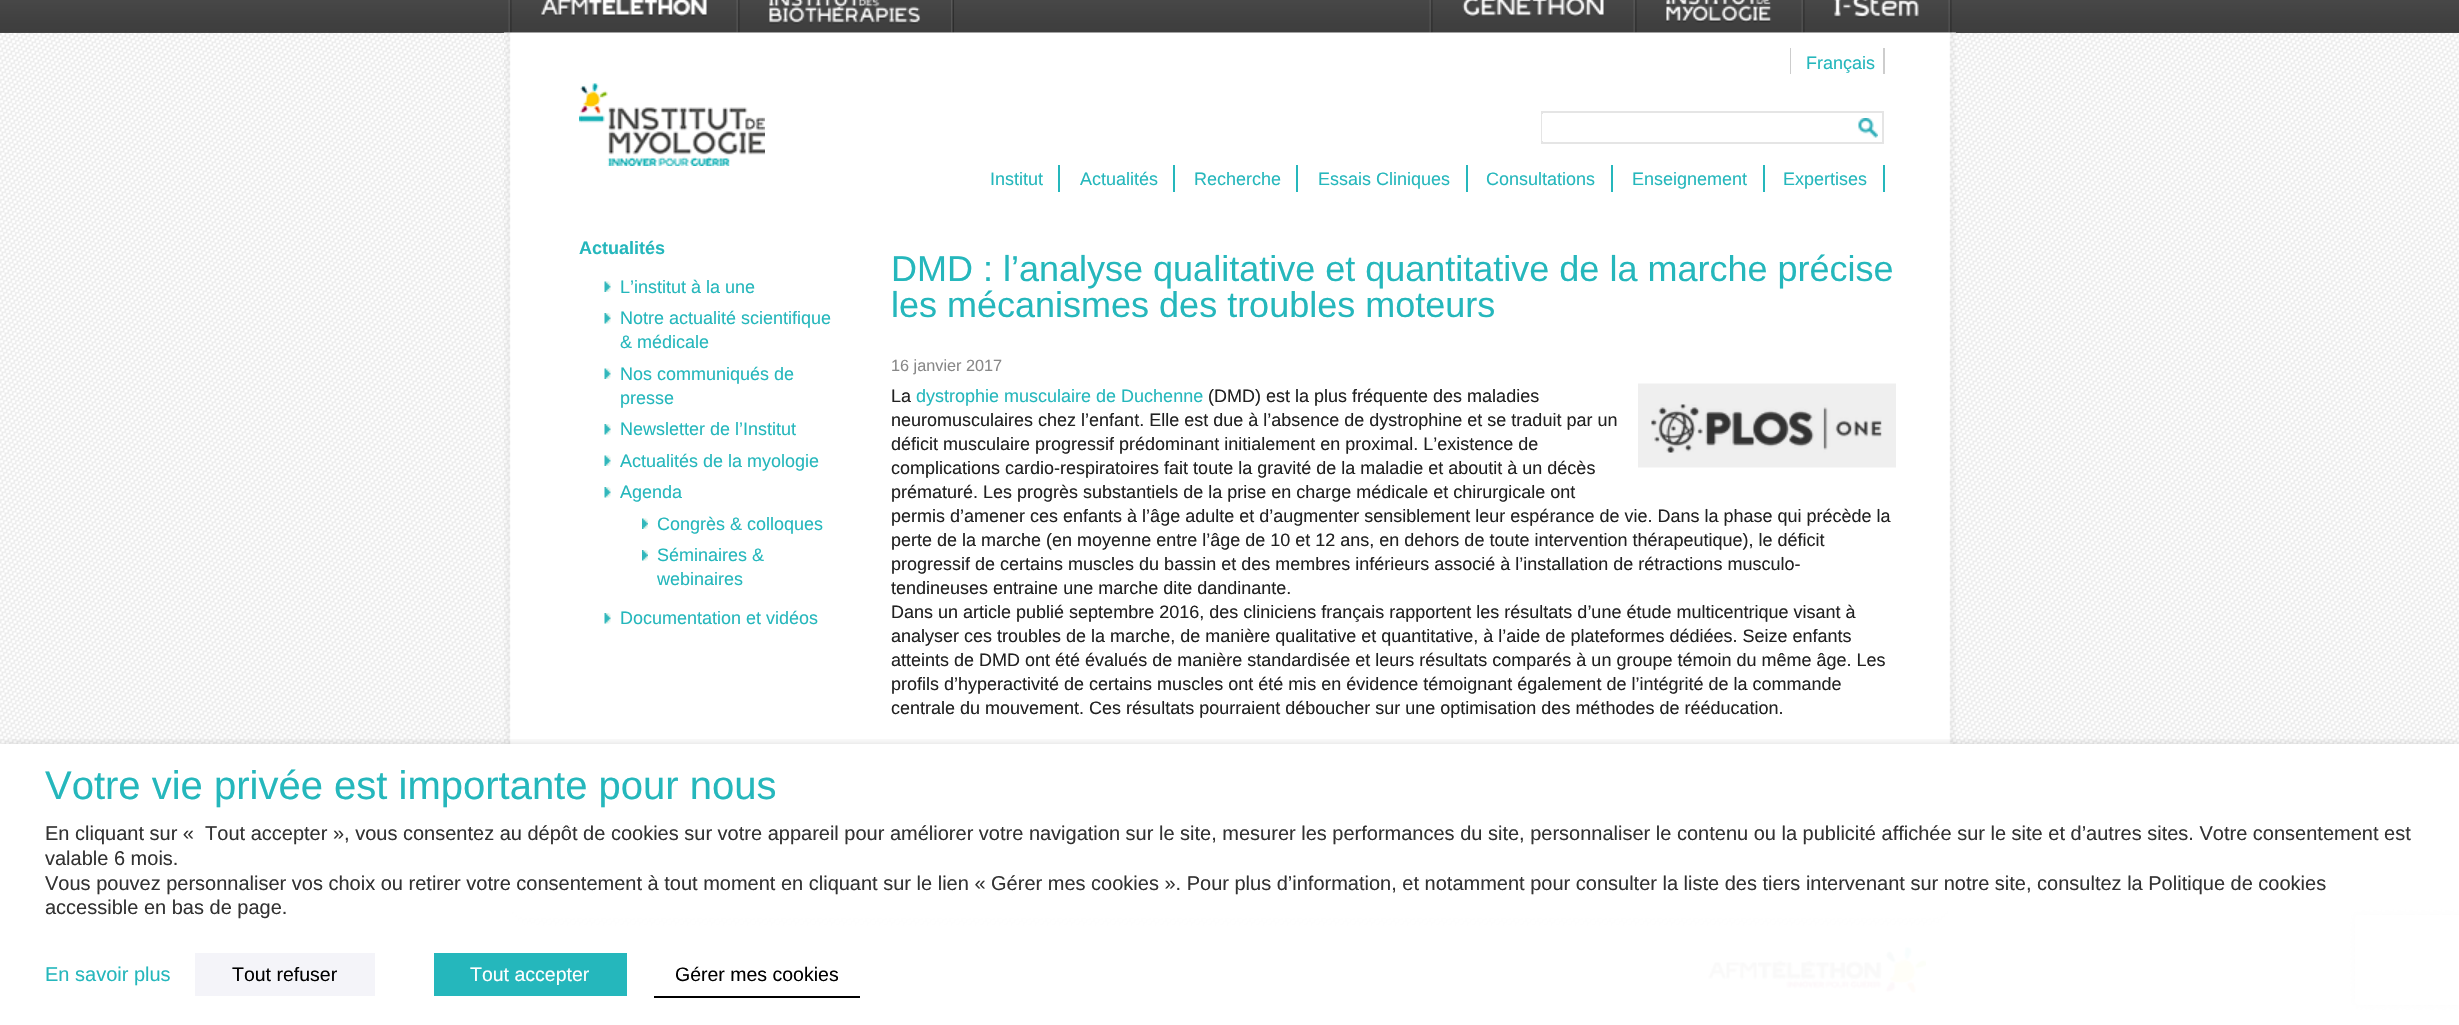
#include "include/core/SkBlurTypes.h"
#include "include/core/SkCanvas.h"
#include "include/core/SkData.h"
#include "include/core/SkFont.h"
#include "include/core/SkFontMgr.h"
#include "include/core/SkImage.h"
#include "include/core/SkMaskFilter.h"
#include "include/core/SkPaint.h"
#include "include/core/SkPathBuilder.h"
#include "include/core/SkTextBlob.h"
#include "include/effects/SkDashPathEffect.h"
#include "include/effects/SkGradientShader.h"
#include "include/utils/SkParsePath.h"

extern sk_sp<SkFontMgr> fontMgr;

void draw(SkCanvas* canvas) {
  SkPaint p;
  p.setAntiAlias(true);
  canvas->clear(SK_ColorWHITE);
  canvas->drawImageRect(SkImages::DeferredFromEncodedData(SkData::MakeFromFileName("images/1.png")), SkRect::MakeLTRB(0, 33, 2459, 1025), SkSamplingOptions());
  p.setColor(SkColorSetRGB(77, 77, 77));
  canvas->drawRect(SkRect::MakeLTRB(0, 32, 2459, 33), p);
  canvas->drawImageRect(SkImages::DeferredFromEncodedData(SkData::MakeFromFileName("images/2.png")), SkRect::MakeLTRB(0, 0, 2459, 33), SkSamplingOptions());
  canvas->drawImageRect(SkImages::DeferredFromEncodedData(SkData::MakeFromFileName("images/3.png")), SkRect::MakeLTRB(508, 0, 512, 33), SkSamplingOptions());
  canvas->drawImageRect(SkImages::DeferredFromEncodedData(SkData::MakeFromFileName("images/3.png")), SkRect::MakeLTRB(1948, 0, 1952, 33), SkSamplingOptions());
  canvas->drawImageRect(SkImages::DeferredFromEncodedData(SkData::MakeFromFileName("images/3.png")), SkRect::MakeLTRB(736, 0, 740, 33), SkSamplingOptions());
  canvas->drawImageRect(SkImages::DeferredFromEncodedData(SkData::MakeFromFileName("images/4.png")), SkRect::MakeLTRB(541, 0, 707, 18), SkSamplingOptions());
  canvas->drawImageRect(SkImages::DeferredFromEncodedData(SkData::MakeFromFileName("images/5.png")), SkRect::MakeLTRB(951, 0, 954, 33), SkSamplingOptions());
  canvas->drawImageRect(SkImages::DeferredFromEncodedData(SkData::MakeFromFileName("images/6.png")), SkRect::MakeLTRB(769, 0, 921, 24), SkSamplingOptions());
  canvas->drawImageRect(SkImages::DeferredFromEncodedData(SkData::MakeFromFileName("images/3.png")), SkRect::MakeLTRB(1429, 0, 1433, 33), SkSamplingOptions());
  canvas->drawImageRect(SkImages::DeferredFromEncodedData(SkData::MakeFromFileName("images/7.png")), SkRect::MakeLTRB(1462, 0, 1604, 18), SkSamplingOptions());
  canvas->drawImageRect(SkImages::DeferredFromEncodedData(SkData::MakeFromFileName("images/3.png")), SkRect::MakeLTRB(1633, 0, 1637, 33), SkSamplingOptions());
  canvas->drawImageRect(SkImages::DeferredFromEncodedData(SkData::MakeFromFileName("images/8.png")), SkRect::MakeLTRB(1666, 0, 1772, 23), SkSamplingOptions());
  canvas->drawImageRect(SkImages::DeferredFromEncodedData(SkData::MakeFromFileName("images/3.png")), SkRect::MakeLTRB(1801, 0, 1805, 33), SkSamplingOptions());
  canvas->drawImageRect(SkImages::DeferredFromEncodedData(SkData::MakeFromFileName("images/9.png")), SkRect::MakeLTRB(1834, 0, 1919, 18), SkSamplingOptions());
  p.setColor(SK_ColorWHITE);
  canvas->drawRect(SkRect::MakeLTRB(504, 932, 1956, 933), p);
  canvas->drawImageRect(SkImages::DeferredFromEncodedData(SkData::MakeFromFileName("images/10.png")), SkRect::MakeLTRB(504, 888, 1956, 933), SkSamplingOptions());
  canvas->drawImageRect(SkImages::DeferredFromEncodedData(SkData::MakeFromFileName("images/11.png")), SkRect::MakeLTRB(504, 32, 1956, 220), SkSamplingOptions());
  canvas->drawImageRect(SkImages::DeferredFromEncodedData(SkData::MakeFromFileName("images/12.png")), SkRect::MakeLTRB(579, 83, 765, 166), SkSamplingOptions());
  p.setColor(SkColorSetRGB(205, 205, 205));
  canvas->drawRect(SkRect::MakeLTRB(1883, 48, 1885, 74), p);
  canvas->drawRect(SkRect::MakeLTRB(1790, 48, 1791, 74), p);
  p.setStyle(SkPaint::kStroke_Style);
  p.setStrokeWidth(2);
  p.setColor(SkColorSetRGB(229, 229, 229));
  canvas->drawRect(SkRect::MakeLTRB(1542, 112, 1883, 143), p);
  p.setStyle(SkPaint::kFill_Style);
  p.setColor(SK_ColorWHITE);
  canvas->drawRect(SkRect::MakeLTRB(1542, 114, 1543, 141), p);
  canvas->drawImageRect(SkImages::DeferredFromEncodedData(SkData::MakeFromFileName("images/13.png")), SkRect::MakeLTRB(1858, 118, 1878, 138), SkSamplingOptions());
  p.setColor(SkColorSetRGB(37, 183, 188));
  canvas->drawRect(SkRect::MakeLTRB(1058, 165, 1060, 192), p);
  canvas->drawRect(SkRect::MakeLTRB(1173, 165, 1175, 192), p);
  canvas->drawRect(SkRect::MakeLTRB(1296, 165, 1298, 192), p);
  canvas->drawRect(SkRect::MakeLTRB(1466, 165, 1468, 192), p);
  canvas->drawRect(SkRect::MakeLTRB(1611, 165, 1613, 192), p);
  canvas->drawRect(SkRect::MakeLTRB(1763, 165, 1765, 192), p);
  canvas->drawRect(SkRect::MakeLTRB(1883, 165, 1885, 192), p);
  p.setColor(SK_ColorWHITE);
  canvas->drawRect(SkRect::MakeLTRB(504, 887, 1956, 888), p);
  canvas->drawImageRect(SkImages::DeferredFromEncodedData(SkData::MakeFromFileName("images/14.png")), SkRect::MakeLTRB(504, 220, 1956, 888), SkSamplingOptions());
  canvas->drawImageRect(SkImages::DeferredFromEncodedData(SkData::MakeFromFileName("images/15.png")), SkRect::MakeLTRB(604, 281, 611, 292), SkSamplingOptions());
  canvas->drawImageRect(SkImages::DeferredFromEncodedData(SkData::MakeFromFileName("images/16.png")), SkRect::MakeLTRB(604, 313, 611, 324), SkSamplingOptions());
  canvas->drawImageRect(SkImages::DeferredFromEncodedData(SkData::MakeFromFileName("images/15.png")), SkRect::MakeLTRB(604, 368, 611, 379), SkSamplingOptions());
  canvas->drawImageRect(SkImages::DeferredFromEncodedData(SkData::MakeFromFileName("images/16.png")), SkRect::MakeLTRB(604, 424, 611, 435), SkSamplingOptions());
  canvas->drawImageRect(SkImages::DeferredFromEncodedData(SkData::MakeFromFileName("images/15.png")), SkRect::MakeLTRB(604, 455, 611, 466), SkSamplingOptions());
  canvas->drawImageRect(SkImages::DeferredFromEncodedData(SkData::MakeFromFileName("images/16.png")), SkRect::MakeLTRB(604, 487, 611, 498), SkSamplingOptions());
  canvas->drawImageRect(SkImages::DeferredFromEncodedData(SkData::MakeFromFileName("images/17.png")), SkRect::MakeLTRB(642, 518, 648, 529), SkSamplingOptions());
  canvas->drawImageRect(SkImages::DeferredFromEncodedData(SkData::MakeFromFileName("images/18.png")), SkRect::MakeLTRB(642, 550, 648, 561), SkSamplingOptions());
  canvas->drawImageRect(SkImages::DeferredFromEncodedData(SkData::MakeFromFileName("images/16.png")), SkRect::MakeLTRB(604, 613, 611, 624), SkSamplingOptions());
  canvas->drawImageRect(SkImages::DeferredFromEncodedData(SkData::MakeFromFileName("images/19.png")), SkRect::MakeLTRB(1638, 383, 1896, 468), SkSamplingOptions());
  canvas->drawImageRect(SkImages::DeferredFromEncodedData(SkData::MakeFromFileName("images/20.png")), SkRect::MakeLTRB(1708, 947, 1926, 993), SkSamplingOptions());
  canvas->save();
  canvas->clipRect(SkRect::MakeLTRB(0, 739, 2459, 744));
  p.setColor(SkColorSetARGB(128, 0, 0, 0));
  p.setMaskFilter(SkMaskFilter::MakeBlur(kNormal_SkBlurStyle, 7.5f));
  canvas->drawRect(SkRect::MakeLTRB(0, 752, 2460, 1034), p);
  p.setMaskFilter(nullptr);
  canvas->restore();
  canvas->save();
  canvas->clipPath(SkPathBuilder(SkPathFillType::kEvenOdd).moveTo(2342, 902).lineTo(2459, 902).lineTo(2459, 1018).lineTo(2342, 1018).close().moveTo(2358, 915).lineTo(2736, 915).cubicTo(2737.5f, 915, 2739, 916.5f, 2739, 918).lineTo(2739, 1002).cubicTo(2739, 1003.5f, 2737.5f, 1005, 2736, 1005).lineTo(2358, 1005).cubicTo(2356.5f, 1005, 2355, 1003.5f, 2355, 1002).lineTo(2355, 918).cubicTo(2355, 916.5f, 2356.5f, 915, 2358, 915).close().detach(), true);
  p.setColor(SkColorSetRGB(128, 128, 128));
  p.setMaskFilter(SkMaskFilter::MakeBlur(kNormal_SkBlurStyle, 4));
  canvas->drawRoundRect(SkRect::MakeLTRB(2355, 915, 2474, 1005), 3, 3, p);
  p.setMaskFilter(nullptr);
  canvas->restore();
  p.setColor(SkColorSetARGB(247, 255, 255, 255));
  canvas->drawRect(SkRect::MakeLTRB(0, 744, 2459, 1025), p);
  p.setColor(SkColorSetRGB(244, 244, 249));
  canvas->drawRect(SkRect::MakeLTRB(195, 953, 375, 996), p);
  p.setColor(SkColorSetRGB(37, 183, 188));
  canvas->drawRect(SkRect::MakeLTRB(434, 953, 627, 996), p);
  p.setColor(SK_ColorBLACK);
  canvas->drawRect(SkRect::MakeLTRB(654, 996, 860, 998), p);
  SkFont font1(fontMgr->matchFamilyStyle("Liberation Sans", SkFontStyle::Normal()), 18);
  font1.setSubpixel(true);
  p.setColor(SkColorSetRGB(37, 183, 188));
  canvas->drawString("Français", 1806, 69, font1, p);
  canvas->drawString("Institut", 990, 185, font1, p);
  canvas->drawString("Actualités", 1080, 185, font1, p);
  canvas->drawString("Recherche", 1194, 185, font1, p);
  canvas->drawString("Essais Cliniques", 1318, 185, font1, p);
  canvas->drawString("Consultations", 1486, 185, font1, p);
  canvas->drawString("Enseignement", 1632, 185, font1, p);
  canvas->drawString("Expertises", 1783, 185, font1, p);
  SkFont font2(fontMgr->matchFamilyStyle("Liberation Sans", SkFontStyle::Bold()), 18);
  font2.setSubpixel(true);
  canvas->drawString("Actualités", 579, 254, font2, p);
  canvas->drawString("L’institut à la une", 620, 293, font1, p);
  canvas->drawString("Notre actualité scientifique", 620, 324, font1, p);
  canvas->drawString("& médicale", 620, 348, font1, p);
  canvas->drawString("Nos communiqués de", 620, 380, font1, p);
  canvas->drawString("presse", 620, 404, font1, p);
  canvas->drawString("Newsletter de l’Institut", 620, 435, font1, p);
  canvas->drawString("Actualités de la myologie", 620, 467, font1, p);
  canvas->drawString("Agenda", 620, 498, font1, p);
  canvas->drawString("Congrès & colloques", 657, 530, font1, p);
  canvas->drawString("Séminaires &", 657, 561, font1, p);
  canvas->drawString("webinaires", 657, 585, font1, p);
  canvas->drawString("Documentation et vidéos", 620, 624, font1, p);
  SkFont font3(fontMgr->matchFamilyStyle("Liberation Sans", SkFontStyle::Normal()), 36);
  font3.setSubpixel(true);
  canvas->drawString("DMD : l’analyse qualitative et quantitative de la marche précise", 891, 281, font3, p);
  canvas->drawString("les mécanismes des troubles moteurs", 891, 317, font3, p);
  SkFont font4(fontMgr->matchFamilyStyle("Liberation Sans", SkFontStyle::Normal()), 16.25f);
  font4.setSubpixel(true);
  p.setColor(SkColorSetRGB(136, 136, 136));
  canvas->drawString("16 janvier 2017", 891, 371, font4, p);
  p.setColor(SkColorSetRGB(34, 34, 34));
  canvas->drawString("La", 891, 402, font1, p);
  p.setColor(SkColorSetRGB(37, 183, 188));
  canvas->drawString("dystrophie musculaire de Duchenne", 916, 402, font1, p);
  p.setColor(SkColorSetRGB(34, 34, 34));
  canvas->drawString("(DMD) est la plus fréquente des maladies", 1208, 402, font1, p);
  canvas->drawString("neuromusculaires chez l’enfant. Elle est due à l’absence de dystrophine et se traduit par un", 891, 426, font1, p);
  canvas->drawString("déficit musculaire progressif prédominant initialement en proximal. L’existence de", 891, 450, font1, p);
  canvas->drawString("complications cardio-respiratoires fait toute la gravité de la maladie et aboutit à un décès", 891, 474, font1, p);
  canvas->drawString("prématuré. Les progrès substantiels de la prise en charge médicale et chirurgicale ont", 891, 498, font1, p);
  canvas->drawString("permis d’amener ces enfants à l’âge adulte et d’augmenter sensiblement leur espérance de vie. Dans la phase qui précède la", 891, 522, font1, p);
  canvas->drawString("perte de la marche (en moyenne entre l’âge de 10 et 12 ans, en dehors de toute intervention thérapeutique), le déficit", 891, 546, font1, p);
  canvas->drawString("progressif de certains muscles du bassin et des membres inférieurs associé à l’installation de rétractions musculo-", 891, 570, font1, p);
  canvas->drawString("tendineuses entraine une marche dite dandinante.", 891, 594, font1, p);
  canvas->drawString("Dans un article publié septembre 2016, des cliniciens français rapportent les résultats d’une étude multicentrique visant à", 891, 618, font1, p);
  canvas->drawString("analyser ces troubles de la marche, de manière qualitative et quantitative, à l’aide de plateformes dédiées. Seize enfants", 891, 642, font1, p);
  canvas->drawString("atteints de DMD ont été évalués de manière standardisée et leurs résultats comparés à un groupe témoin du même âge. Les", 891, 666, font1, p);
  canvas->drawString("profils d’hyperactivité de certains muscles ont été mis en évidence témoignant également de l’intégrité de la commande", 891, 690, font1, p);
  canvas->drawString("centrale du mouvement. Ces résultats pourraient déboucher sur une optimisation des méthodes de rééducation.", 891, 714, font1, p);
  SkFont font5(fontMgr->matchFamilyStyle("Liberation Sans", SkFontStyle::Normal()), 40);
  font5.setSubpixel(true);
  p.setColor(SkColorSetRGB(37, 183, 188));
  canvas->drawString("Votre vie privée est importante pour nous", 45, 799, font5, p);
  SkFont font6(fontMgr->matchFamilyStyle("Liberation Sans", SkFontStyle::Normal()), 20);
  font6.setSubpixel(true);
  p.setColor(SkColorSetRGB(51, 51, 51));
  canvas->drawString("En cliquant sur «  Tout accepter », vous consentez au dépôt de cookies sur votre appareil pour améliorer votre navigation sur le site, mesurer les performances du site, personnaliser le contenu ou la publicité affichée sur le site et d’autres sites. Votre consentement est", 45, 840, font6, p);
  canvas->drawString("valable 6 mois.", 45, 865, font6, p);
  canvas->drawString("Vous pouvez personnaliser vos choix ou retirer votre consentement à tout moment en cliquant sur le lien « Gérer mes cookies ». Pour plus d’information, et notamment pour consulter la liste des tiers intervenant sur notre site, consultez la Politique de cookies", 45, 890, font6, p);
  canvas->drawString("accessible en bas de page.", 45, 914, font6, p);
  p.setColor(SkColorSetRGB(37, 183, 188));
  canvas->drawString("En savoir plus", 45, 981, font6, p);
  SkFont font7(fontMgr->matchFamilyStyle("Liberation Sans", SkFontStyle::Normal()), 19.5f);
  font7.setSubpixel(true);
  p.setColor(SK_ColorBLACK);
  canvas->drawString("Tout refuser", 232, 981, font7, p);
  p.setColor(SK_ColorWHITE);
  canvas->drawString("Tout accepter", 470, 981, font7, p);
  p.setColor(SK_ColorBLACK);
  canvas->drawString("Gérer mes cookies", 675, 981, font7, p);
}
